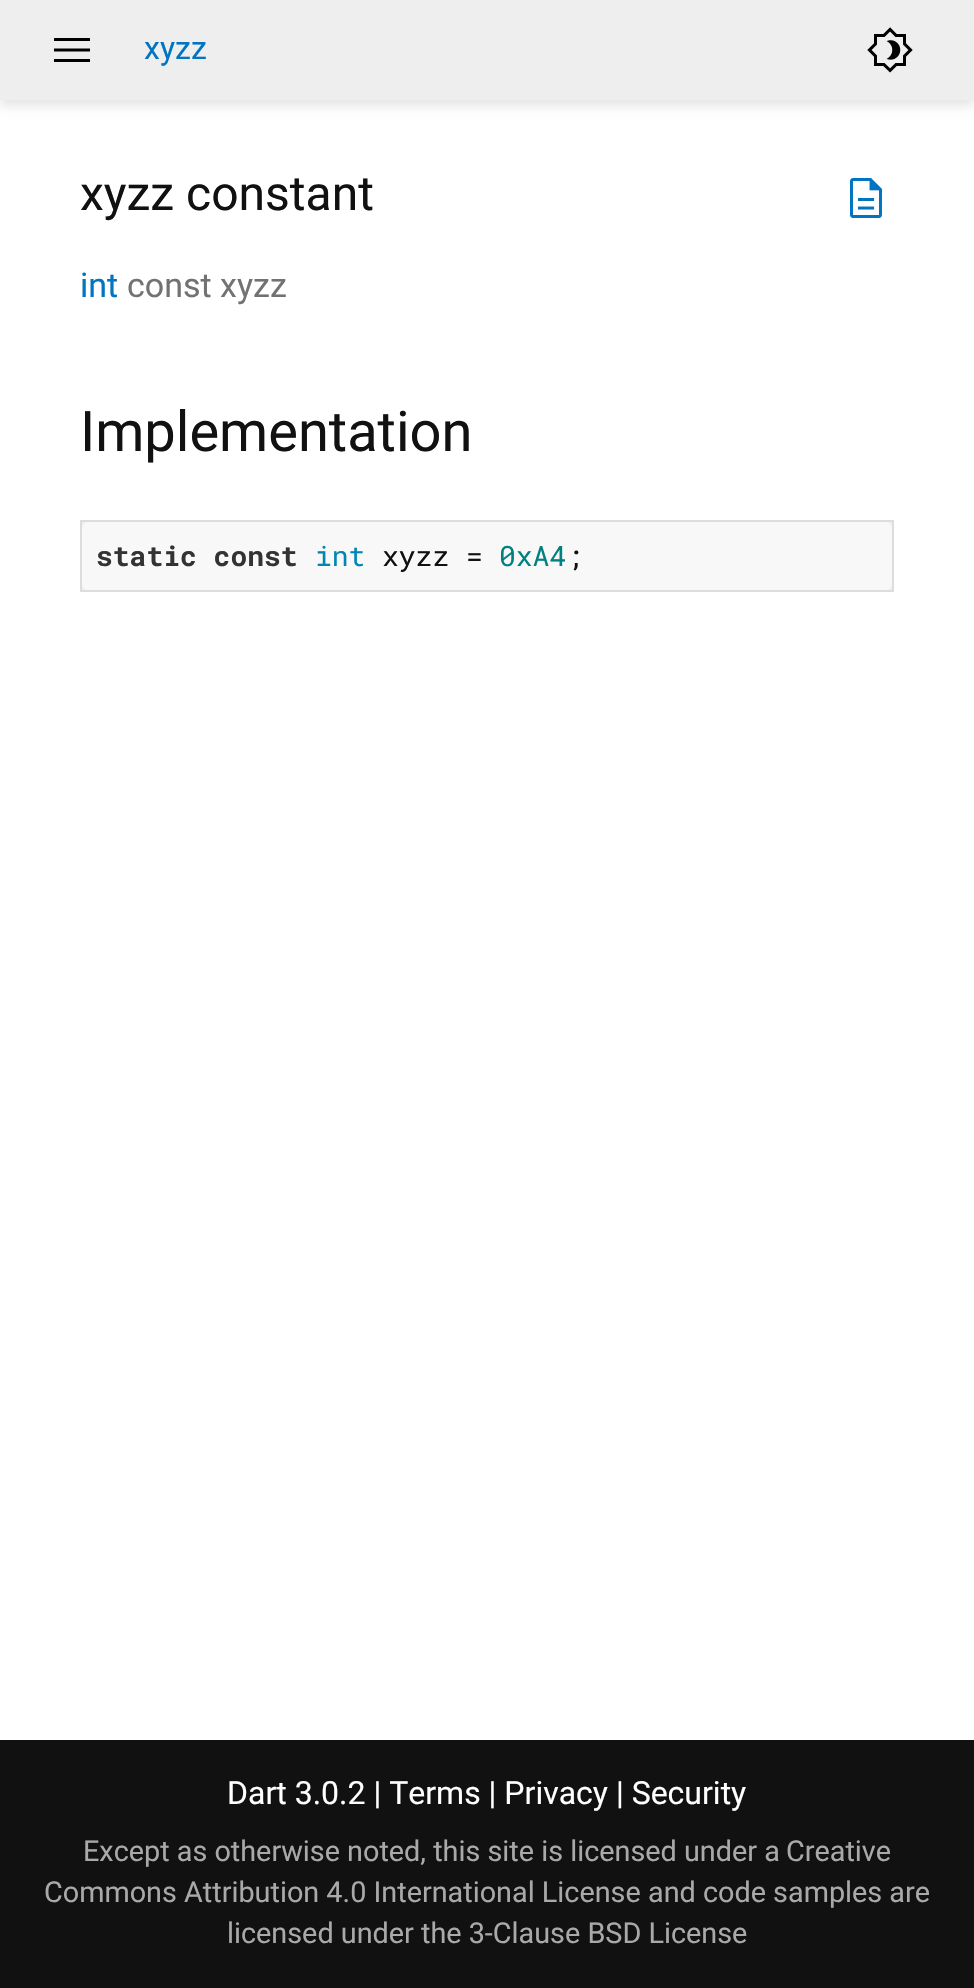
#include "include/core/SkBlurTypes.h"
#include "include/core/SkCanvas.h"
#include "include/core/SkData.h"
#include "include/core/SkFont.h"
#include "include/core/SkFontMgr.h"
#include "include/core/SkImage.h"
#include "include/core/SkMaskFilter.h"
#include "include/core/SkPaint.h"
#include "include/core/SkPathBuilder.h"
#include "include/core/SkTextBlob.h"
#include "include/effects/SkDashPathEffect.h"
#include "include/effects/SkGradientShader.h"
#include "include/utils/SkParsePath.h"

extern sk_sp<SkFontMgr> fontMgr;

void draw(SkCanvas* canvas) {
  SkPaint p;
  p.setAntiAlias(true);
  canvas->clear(SK_ColorWHITE);
  p.setColor(SkColorSetARGB(26, 0, 0, 0));
  p.setMaskFilter(SkMaskFilter::MakeBlur(kNormal_SkBlurStyle, 5));
  canvas->drawRect(SkRect::MakeLTRB(0, 6, 974, 106), p);
  p.setMaskFilter(nullptr);
  p.setColor(SkColorSetRGB(238, 238, 238));
  canvas->drawRect(SkRect::MakeLTRB(0, 0, 974, 100), p);
  p.setColor(SK_ColorBLACK);
  canvas->drawPath(SkPathBuilder().moveTo(54, 62).lineTo(54, 59).lineTo(90, 59).lineTo(90, 62).close().moveTo(54, 51.5f).lineTo(54, 48.5f).lineTo(90, 48.5f).lineTo(90, 51.5f).close().moveTo(54, 41).lineTo(54, 38).lineTo(90, 38).lineTo(90, 41).close().detach(), p);
  canvas->drawImageRect(SkImages::DeferredFromEncodedData(SkData::MakeFromFileName("images/1.png")), SkRect::MakeLTRB(867, 27, 913, 73), SkSamplingOptions());
  canvas->drawImageRect(SkImages::DeferredFromEncodedData(SkData::MakeFromFileName("images/2.png")), SkRect::MakeLTRB(850, 178, 882, 218), SkSamplingOptions());
  p.setColor(SkColorSetRGB(238, 238, 238));
  canvas->drawRect(SkRect::MakeLTRB(81, 521, 893, 591), p);
  p.setStyle(SkPaint::kStroke_Style);
  p.setStrokeWidth(2);
  p.setColor(SkColorSetRGB(221, 221, 221));
  canvas->drawRect(SkRect::MakeLTRB(81, 521, 893, 591), p);
  p.setStyle(SkPaint::kFill_Style);
  p.setColor(SkColorSetRGB(248, 248, 248));
  canvas->drawRoundRect(SkRect::MakeLTRB(82, 522, 892, 590), 6, 6, p);
  p.setColor(SkColorSetRGB(17, 17, 17));
  canvas->drawRect(SkRect::MakeLTRB(0, 1740, 974, 1988), p);
  SkFont font1(fontMgr->matchFamilyStyle("Roboto", SkFontStyle::Normal()), 32);
  font1.setSubpixel(true);
  p.setColor(SkColorSetRGB(1, 117, 194));
  canvas->drawString("xyzz", 144, 59, font1, p);
  SkFont font2(fontMgr->matchFamilyStyle("Roboto", SkFontStyle::Normal()), 48);
  font2.setSubpixel(true);
  p.setColor(SkColorSetRGB(17, 17, 17));
  canvas->drawString("xyzz constant", 80, 210, font2, p);
  SkFont font3(fontMgr->matchFamilyStyle("Roboto", SkFontStyle::Normal()), 34);
  font3.setSubpixel(true);
  p.setColor(SkColorSetRGB(1, 117, 194));
  canvas->drawString("int", 80, 297, font3, p);
  p.setColor(SkColorSetRGB(114, 114, 114));
  canvas->drawString("const xyzz", 127, 297, font3, p);
  SkFont font4(fontMgr->matchFamilyStyle("Roboto", SkFontStyle::Normal()), 56);
  font4.setSubpixel(true);
  p.setColor(SkColorSetRGB(17, 17, 17));
  canvas->drawString("Implementation", 80, 451, font4, p);
  SkFont font5(fontMgr->matchFamilyStyle("Roboto Mono", SkFontStyle::Bold()), 28);
  font5.setSubpixel(true);
  p.setColor(SkColorSetRGB(51, 51, 51));
  canvas->drawString("static const", 96, 566, font5, p);
  SkFont font6(fontMgr->matchFamilyStyle("Roboto Mono", SkFontStyle::Normal()), 28);
  font6.setSubpixel(true);
  p.setColor(SkColorSetRGB(0, 134, 179));
  canvas->drawString("int", 315, 566, font6, p);
  p.setColor(SkColorSetRGB(17, 17, 17));
  canvas->drawString("xyzz =", 382, 566, font6, p);
  p.setColor(SkColorSetRGB(0, 128, 128));
  canvas->drawString("0xA4", 499, 566, font6, p);
  p.setColor(SkColorSetRGB(17, 17, 17));
  canvas->drawString(";", 567, 566, font6, p);
  p.setColor(SK_ColorWHITE);
  canvas->drawString("Dart 3.0.2 | Terms | Privacy | Security", 227, 1804, font1, p);
  SkFont font7(fontMgr->matchFamilyStyle("Roboto", SkFontStyle::Normal()), 28.8f);
  font7.setSubpixel(true);
  p.setColor(SkColorSetRGB(169, 169, 169));
  canvas->drawString("Except as otherwise noted, this site is licensed under a", 83, 1861, font7, p);
  canvas->drawString("Creative", 786, 1861, font7, p);
  canvas->drawString("Commons Attribution 4.0 International License", 44, 1902, font7, p);
  canvas->drawString("and code samples are", 648, 1902, font7, p);
  canvas->drawString("licensed under the 3-Clause BSD License", 227, 1943, font7, p);
}
